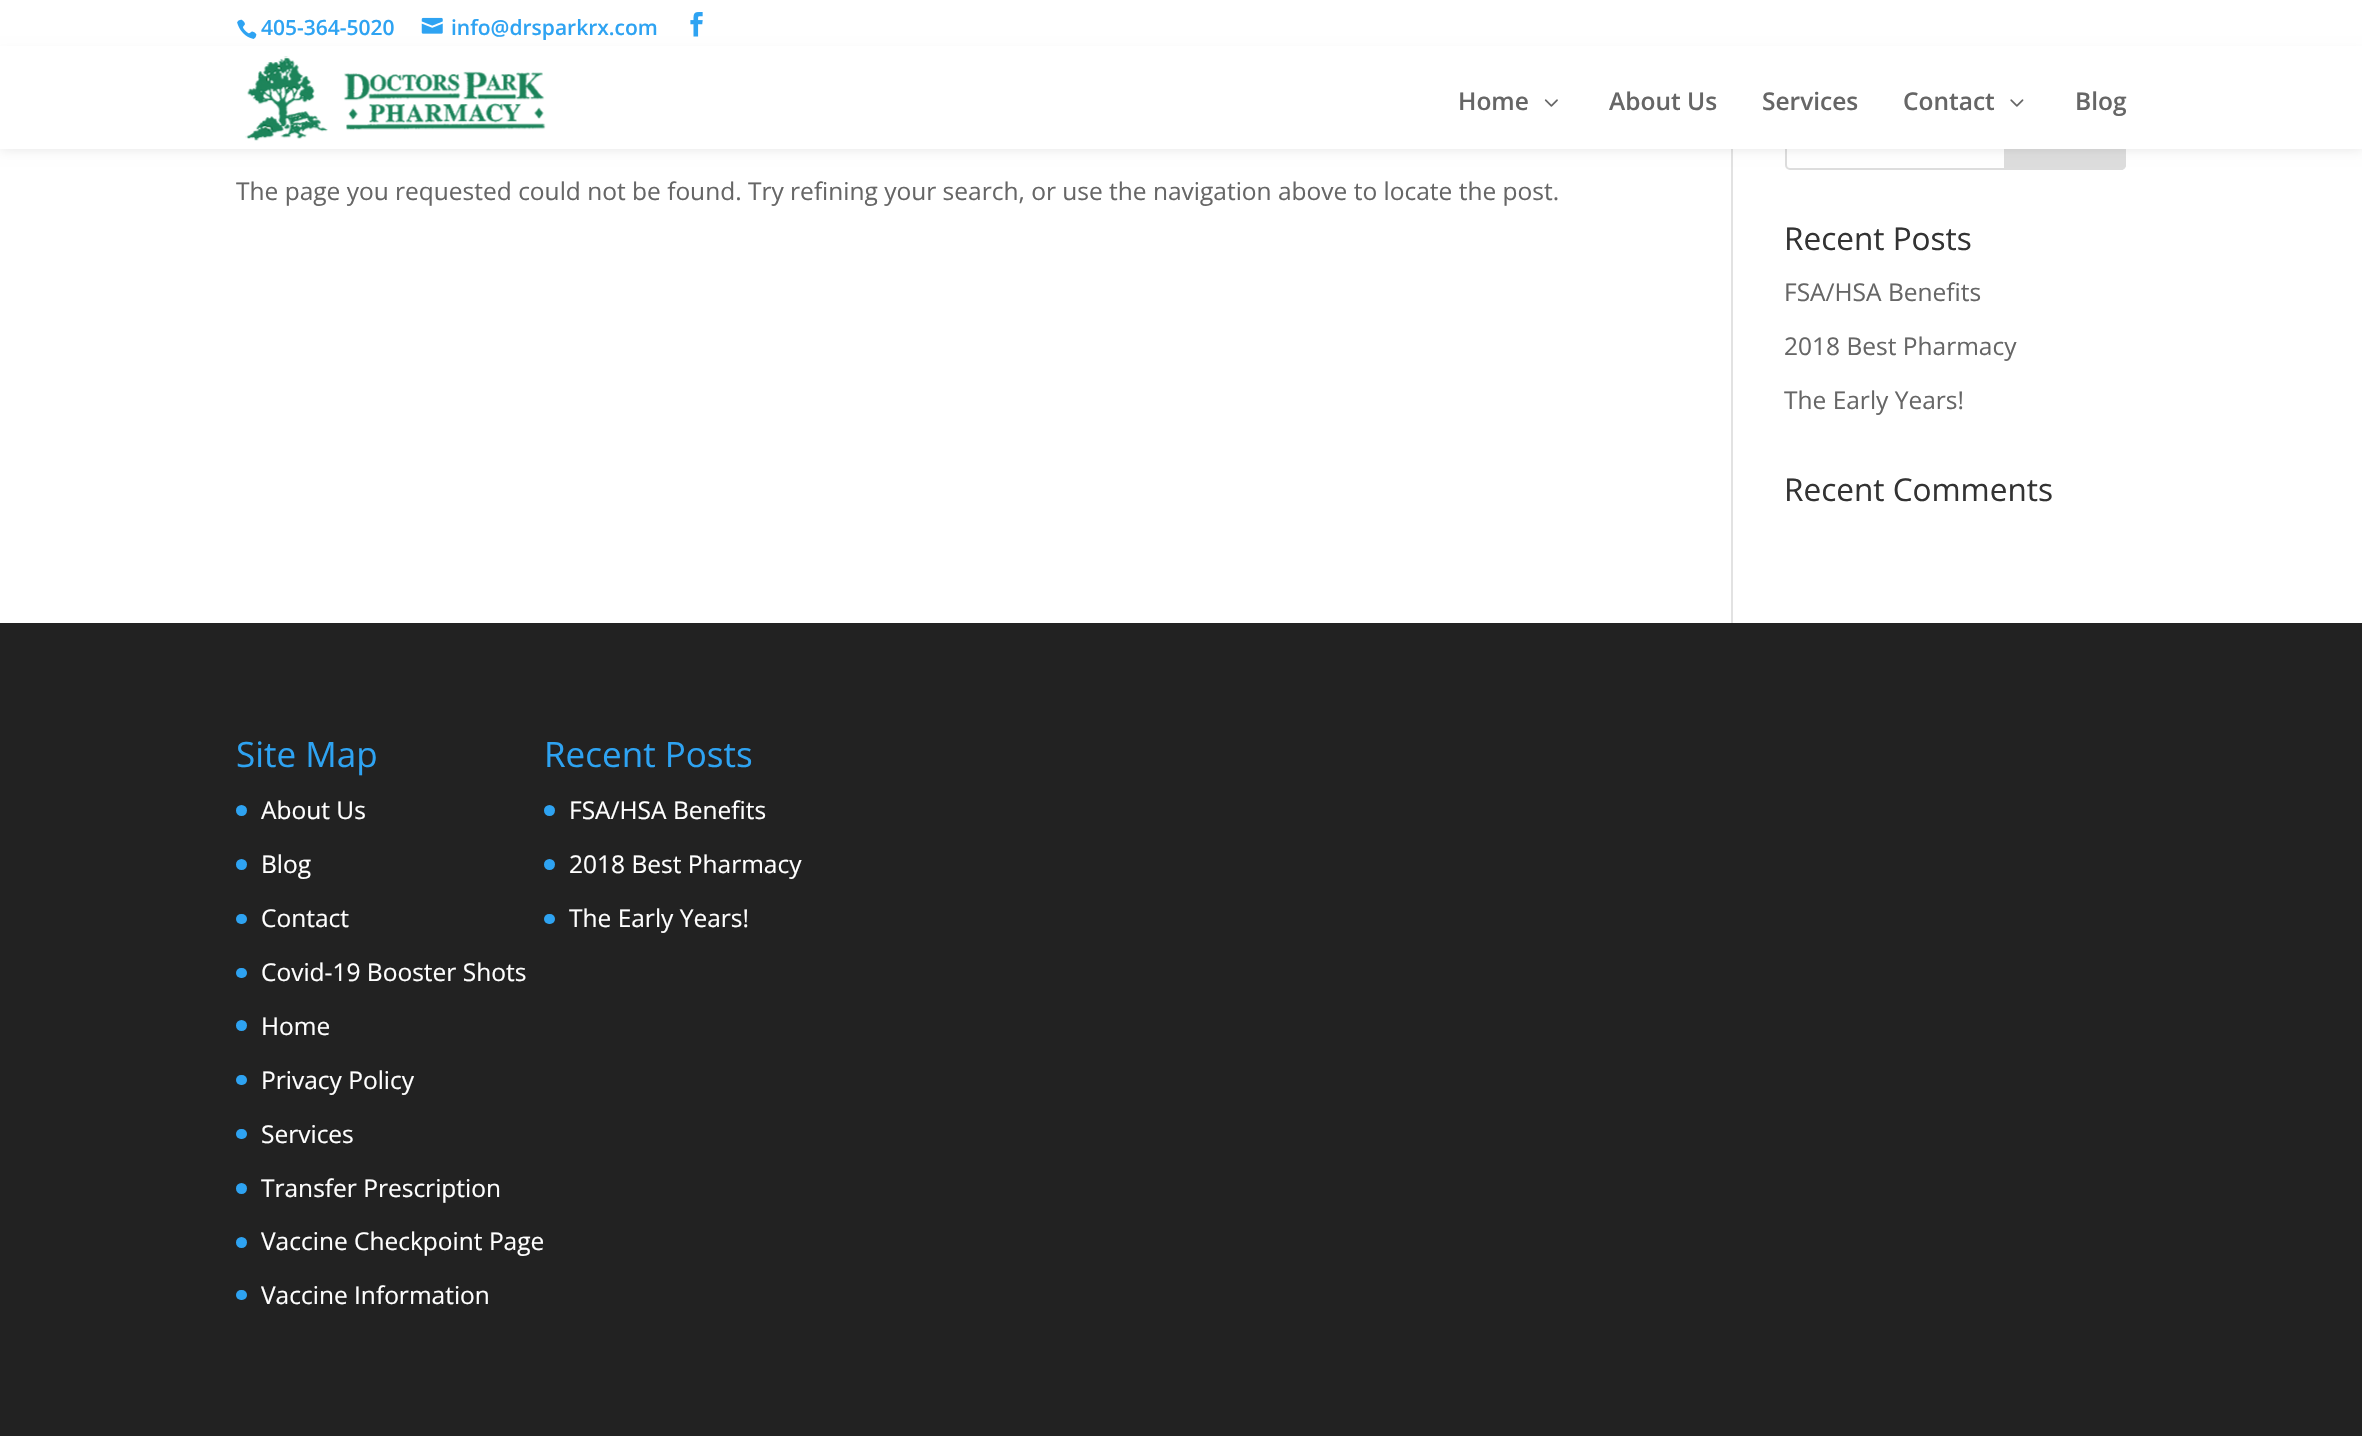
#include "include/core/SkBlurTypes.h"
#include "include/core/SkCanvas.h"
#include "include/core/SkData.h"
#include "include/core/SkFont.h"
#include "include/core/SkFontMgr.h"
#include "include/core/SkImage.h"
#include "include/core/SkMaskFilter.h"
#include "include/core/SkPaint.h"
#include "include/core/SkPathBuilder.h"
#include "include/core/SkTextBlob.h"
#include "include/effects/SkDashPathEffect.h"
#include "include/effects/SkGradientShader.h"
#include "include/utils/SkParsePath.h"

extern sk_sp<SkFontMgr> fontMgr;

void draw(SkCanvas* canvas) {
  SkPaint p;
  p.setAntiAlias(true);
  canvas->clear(SK_ColorWHITE);
  p.setColor(SkColorSetRGB(226, 226, 226));
  canvas->drawRect(SkRect::MakeLTRB(1731, 149, 1733, 623), p);
  p.setStyle(SkPaint::kStroke_Style);
  p.setStrokeWidth(2);
  p.setColor(SkColorSetRGB(221, 221, 221));
  canvas->drawRoundRect(SkRect::MakeLTRB(1786, 101, 2125, 169), 4, 4, p);
  p.setStyle(SkPaint::kFill_Style);
  canvas->drawPath(SkPathBuilder().moveTo(2005, 101).lineTo(2121, 101).cubicTo(2123, 101, 2125, 103, 2125, 105).lineTo(2125, 165).cubicTo(2125, 167, 2123, 169, 2121, 169).lineTo(2005, 169).close().detach(), p);
  p.setStyle(SkPaint::kStroke_Style);
  canvas->drawPath(SkPathBuilder().moveTo(2005, 101).lineTo(2121, 101).cubicTo(2123, 101, 2125, 103, 2125, 105).lineTo(2125, 165).cubicTo(2125, 167, 2123, 169, 2121, 169).lineTo(2005, 169).close().detach(), p);
  p.setStyle(SkPaint::kFill_Style);
  p.setColor(SkColorSetARGB(26, 0, 0, 0));
  p.setMaskFilter(SkMaskFilter::MakeBlur(kNormal_SkBlurStyle, 6));
  canvas->drawRect(SkRect::MakeLTRB(0, 54, 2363, 149), p);
  p.setMaskFilter(nullptr);
  canvas->drawImageRect(SkImages::DeferredFromEncodedData(SkData::MakeFromFileName("images/1.png")), SkRect::MakeLTRB(237, 19, 257, 39), SkSamplingOptions());
  canvas->drawImageRect(SkImages::DeferredFromEncodedData(SkData::MakeFromFileName("images/2.png")), SkRect::MakeLTRB(421, 17, 443, 34), SkSamplingOptions());
  canvas->drawImageRect(SkImages::DeferredFromEncodedData(SkData::MakeFromFileName("images/3.png")), SkRect::MakeLTRB(690, 12, 703, 37), SkSamplingOptions());
  p.setColor(SK_ColorWHITE);
  canvas->drawRect(SkRect::MakeLTRB(0, 46, 2362, 149), p);
  canvas->drawImageRect(SkImages::DeferredFromEncodedData(SkData::MakeFromFileName("images/4.png")), SkRect::MakeLTRB(245, 56, 546, 141), SkSamplingOptions());
  canvas->drawImageRect(SkImages::DeferredFromEncodedData(SkData::MakeFromFileName("images/5.png")), SkRect::MakeLTRB(1544, 99, 1558, 107), SkSamplingOptions());
  canvas->drawImageRect(SkImages::DeferredFromEncodedData(SkData::MakeFromFileName("images/6.png")), SkRect::MakeLTRB(2010, 99, 2024, 107), SkSamplingOptions());
  p.setColor(SkColorSetRGB(34, 34, 34));
  canvas->drawRect(SkRect::MakeLTRB(0, 623, 2362, 1436), p);
  p.setColor(SkColorSetRGB(46, 163, 242));
  canvas->drawCircle(241.5f, 810.5f, 5.5f, p);
  canvas->drawCircle(241.5f, 864.5f, 5.5f, p);
  canvas->drawRoundRect(SkRect::MakeLTRB(236, 914, 247, 924), 5, 5, p);
  canvas->drawRoundRect(SkRect::MakeLTRB(236, 968, 247, 978), 5, 5, p);
  canvas->drawCircle(241.5f, 1025.5f, 5.5f, p);
  canvas->drawRoundRect(SkRect::MakeLTRB(236, 1075, 247, 1085), 5, 5, p);
  canvas->drawRoundRect(SkRect::MakeLTRB(236, 1129, 247, 1139), 5, 5, p);
  canvas->drawCircle(241.5f, 1188.5f, 5.5f, p);
  canvas->drawCircle(241.5f, 1242.5f, 5.5f, p);
  canvas->drawRoundRect(SkRect::MakeLTRB(236, 1290, 247, 1300), 5, 5, p);
  canvas->drawCircle(549.5f, 810.5f, 5.5f, p);
  canvas->drawCircle(549.5f, 864.5f, 5.5f, p);
  canvas->drawRoundRect(SkRect::MakeLTRB(544, 914, 555, 924), 5, 5, p);
  SkFont font1(fontMgr->matchFamilyStyle("Open Sans", SkFontStyle(600, SkFontStyle::kNormal_Width, SkFontStyle::kUpright_Slant)), 21);
  font1.setSubpixel(true);
  canvas->drawString("405-364-5020", 261, 35, font1, p);
  canvas->drawString("info@drsparkrx.com", 451, 35, font1, p);
  SkFont font2(fontMgr->matchFamilyStyle("Open Sans", SkFontStyle(600, SkFontStyle::kNormal_Width, SkFontStyle::kUpright_Slant)), 24.5f);
  font2.setSubpixel(true);
  p.setColor(SkColorSetRGB(102, 102, 102));
  canvas->drawString("Home", 1458, 110, font2, p);
  canvas->drawString("About Us", 1609, 110, font2, p);
  canvas->drawString("Services", 1762, 110, font2, p);
  canvas->drawString("Contact", 1903, 110, font2, p);
  canvas->drawString("Blog", 2075, 110, font2, p);
  SkFont font3(fontMgr->matchFamilyStyle("Open Sans", SkFontStyle::Normal()), 24.5f);
  font3.setSubpixel(true);
  canvas->drawString("The page you requested could not be found. Try refining your search, or use the navigation above to locate the post.", 236, 200, font3, p);
  SkFont font4(fontMgr->matchFamilyStyle("Open Sans", SkFontStyle::Normal()), 31.5f);
  font4.setSubpixel(true);
  p.setColor(SkColorSetRGB(51, 51, 51));
  canvas->drawString("Recent Posts", 1784, 250, font4, p);
  p.setColor(SkColorSetRGB(102, 102, 102));
  canvas->drawString("FSA/HSA Benefits", 1784, 301, font3, p);
  canvas->drawString("2018 Best Pharmacy", 1784, 355, font3, p);
  canvas->drawString("The Early Years!", 1784, 409, font3, p);
  p.setColor(SkColorSetRGB(51, 51, 51));
  canvas->drawString("Recent Comments", 1784, 501, font4, p);
  SkFont font5(fontMgr->matchFamilyStyle("Open Sans", SkFontStyle::Normal()), 35);
  font5.setSubpixel(true);
  p.setColor(SkColorSetRGB(46, 163, 242));
  canvas->drawString("Site Map", 236, 767, font5, p);
  p.setColor(SK_ColorWHITE);
  canvas->drawString("About Us", 261, 819, font3, p);
  canvas->drawString("Blog", 261, 873, font3, p);
  canvas->drawString("Contact", 261, 927, font3, p);
  canvas->drawString("Covid-19 Booster Shots", 261, 981, font3, p);
  canvas->drawString("Home", 261, 1035, font3, p);
  canvas->drawString("Privacy Policy", 261, 1089, font3, p);
  canvas->drawString("Services", 261, 1143, font3, p);
  canvas->drawString("Transfer Prescription", 261, 1197, font3, p);
  canvas->drawString("Vaccine Checkpoint Page", 261, 1250, font3, p);
  canvas->drawString("Vaccine Information", 261, 1304, font3, p);
  p.setColor(SkColorSetRGB(46, 163, 242));
  canvas->drawString("Recent Posts", 544, 767, font5, p);
  p.setColor(SK_ColorWHITE);
  canvas->drawString("FSA/HSA Benefits", 569, 819, font3, p);
  canvas->drawString("2018 Best Pharmacy", 569, 873, font3, p);
  canvas->drawString("The Early Years!", 569, 927, font3, p);
}
